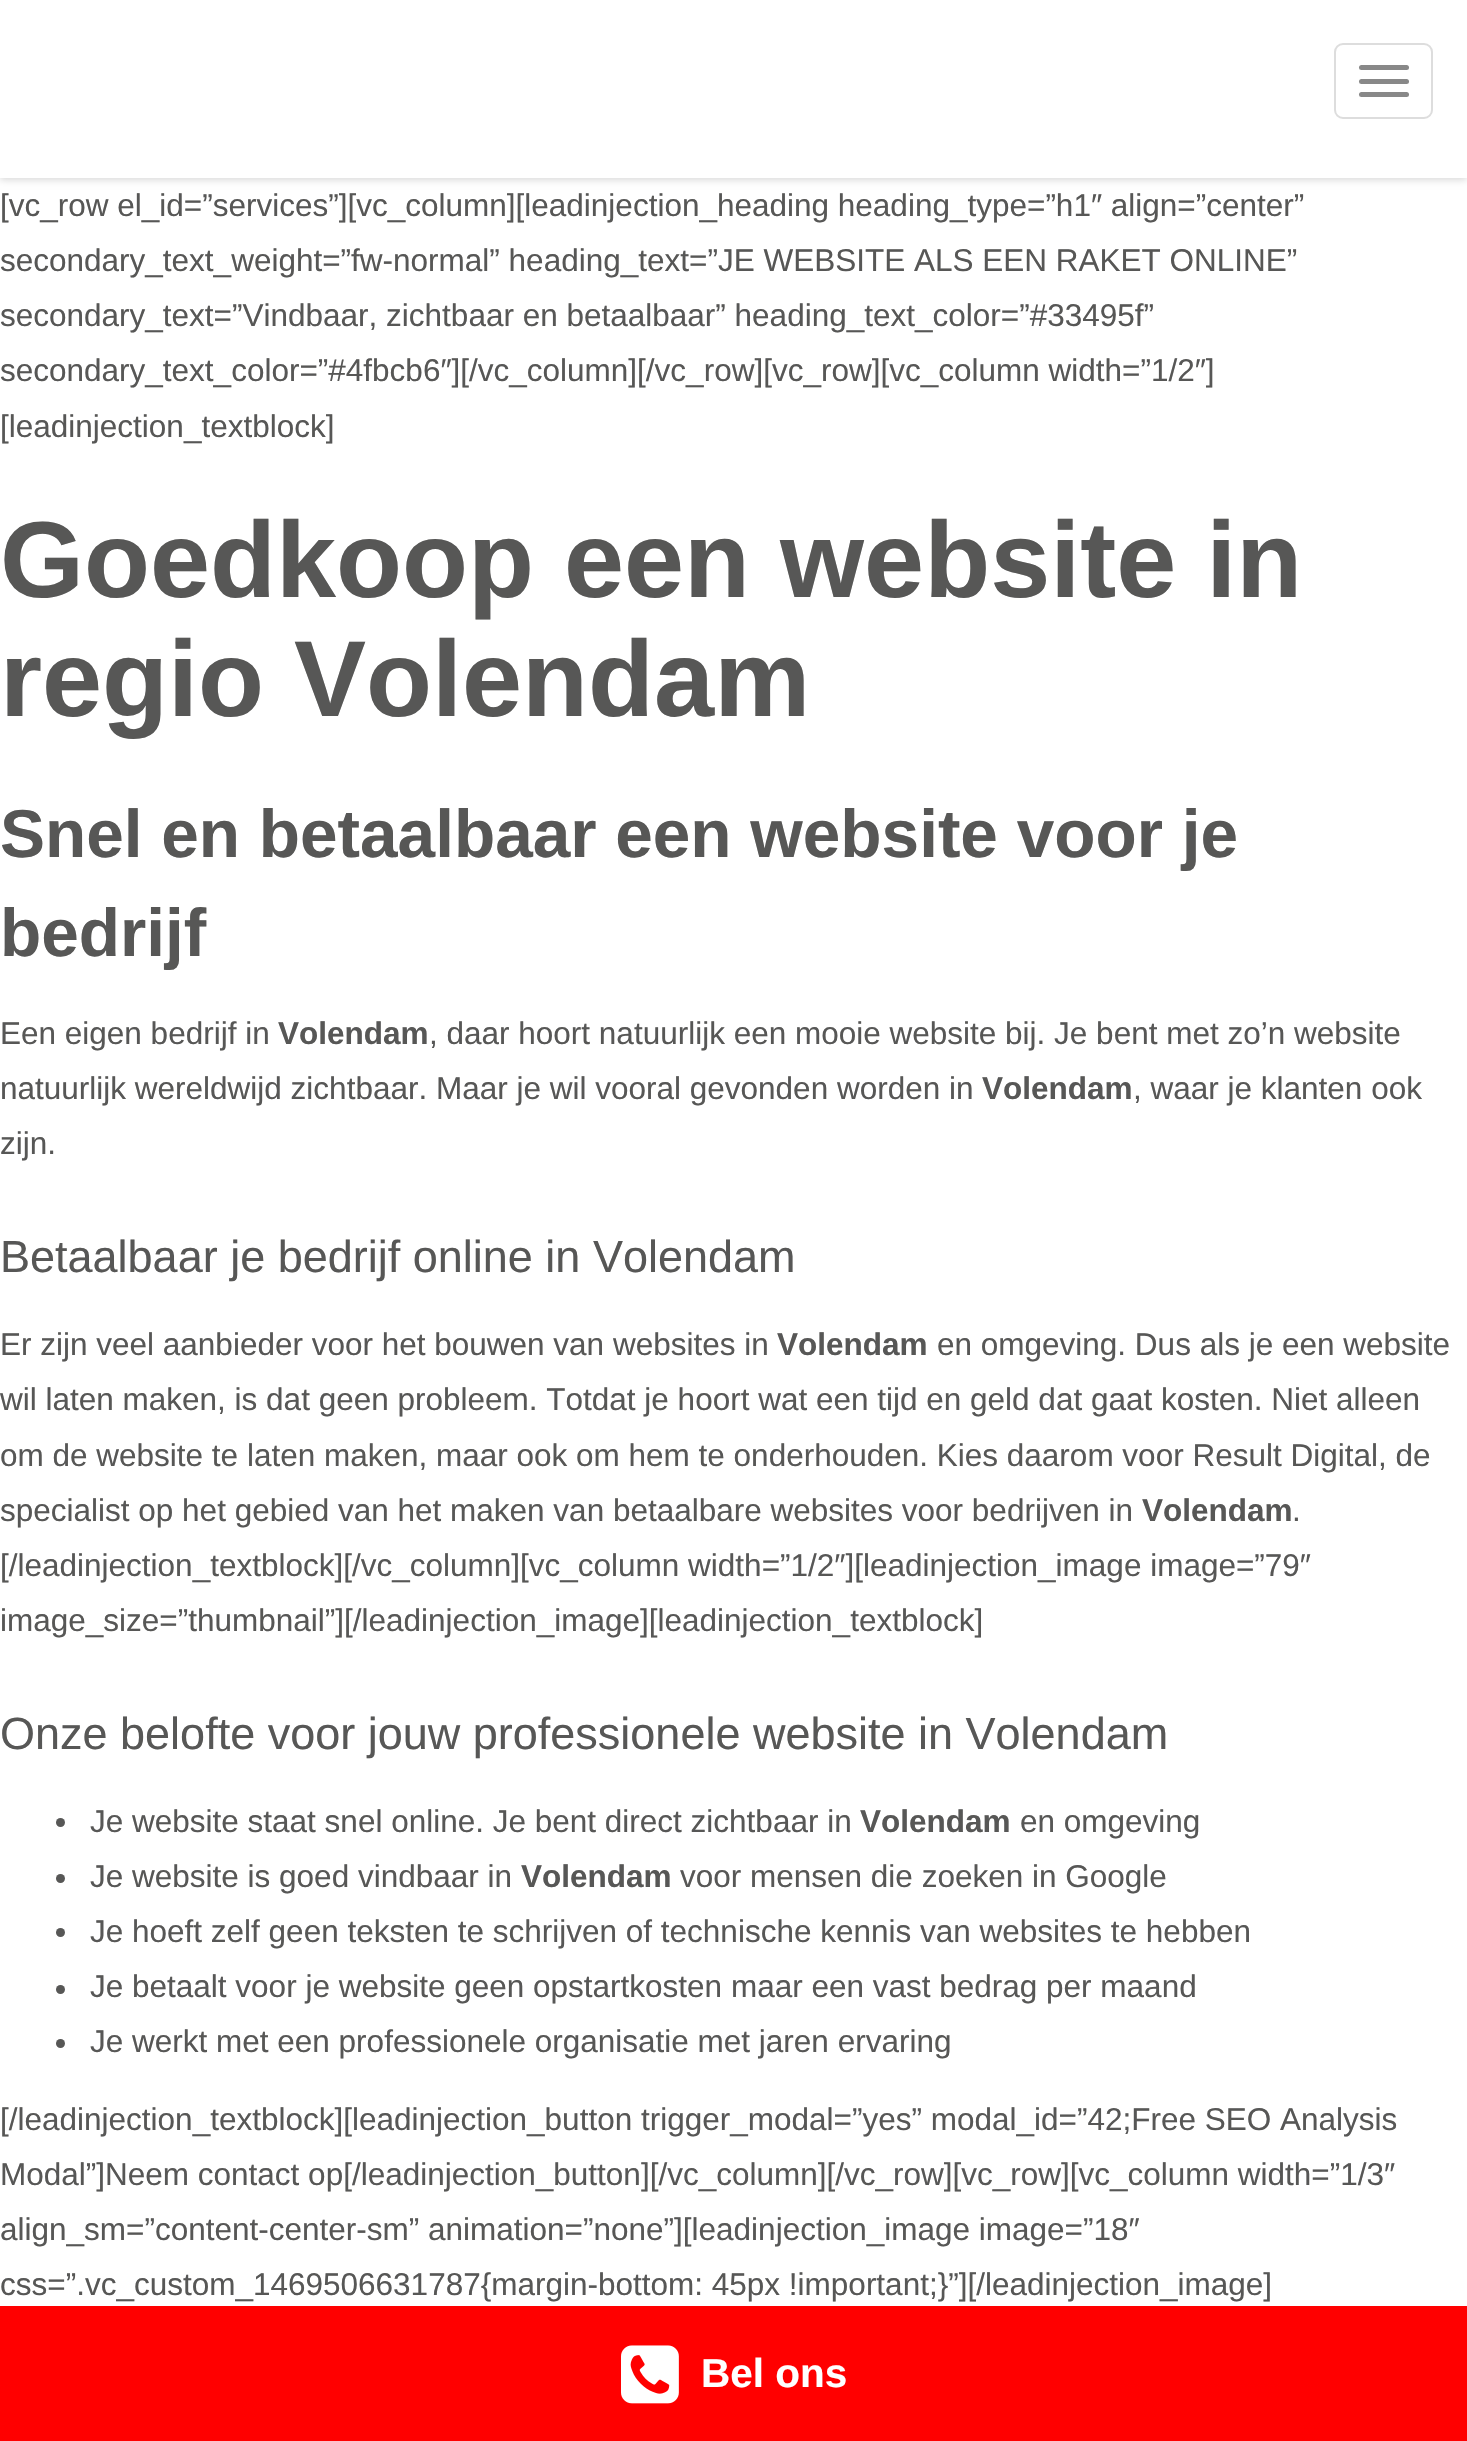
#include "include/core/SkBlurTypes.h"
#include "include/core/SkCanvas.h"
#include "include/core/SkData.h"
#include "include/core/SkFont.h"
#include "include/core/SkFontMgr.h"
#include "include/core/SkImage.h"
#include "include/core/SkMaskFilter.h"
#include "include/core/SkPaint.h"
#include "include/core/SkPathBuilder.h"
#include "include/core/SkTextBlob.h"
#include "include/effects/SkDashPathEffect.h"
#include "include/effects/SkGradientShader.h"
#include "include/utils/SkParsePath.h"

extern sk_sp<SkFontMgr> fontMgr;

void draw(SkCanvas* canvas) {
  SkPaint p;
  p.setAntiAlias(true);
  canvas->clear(SK_ColorWHITE);
  p.setColor(SkColorSetARGB(38, 0, 0, 0));
  p.setMaskFilter(SkMaskFilter::MakeBlur(kNormal_SkBlurStyle, 3.5f));
  canvas->drawRect(SkRect::MakeLTRB(0, 0, 1467, 180), p);
  p.setMaskFilter(nullptr);
  p.setColor(SK_ColorWHITE);
  canvas->drawRect(SkRect::MakeLTRB(0, 0, 1467, 178), p);
  p.setStyle(SkPaint::kStroke_Style);
  p.setStrokeWidth(2);
  p.setColor(SkColorSetRGB(221, 221, 221));
  canvas->drawRoundRect(SkRect::MakeLTRB(1335, 44, 1432, 118), 8, 8, p);
  p.setStyle(SkPaint::kFill_Style);
  p.setColor(SkColorSetRGB(136, 136, 136));
  canvas->drawRoundRect(SkRect::MakeLTRB(1359, 65, 1409, 70), 2.5f, 2.5f, p);
  canvas->drawRoundRect(SkRect::MakeLTRB(1359, 79, 1409, 84), 2.5f, 2.5f, p);
  canvas->drawRoundRect(SkRect::MakeLTRB(1359, 92, 1409, 97), 2.5f, 2.5f, p);
  p.setColor(SkColorSetRGB(87, 87, 86));
  canvas->drawCircle(60.5f, 1822.5f, 4.5f, p);
  canvas->drawCircle(60.5f, 1878.5f, 4.5f, p);
  canvas->drawCircle(60.5f, 1932.5f, 4.5f, p);
  canvas->drawCircle(60.5f, 1989.5f, 4.5f, p);
  canvas->drawCircle(60.5f, 2043.5f, 4.5f, p);
  p.setColor(SkColorSetRGB(255, 0, 0));
  canvas->drawRect(SkRect::MakeLTRB(0, 2306, 1467, 2441), p);
  canvas->drawImageRect(SkImages::DeferredFromEncodedData(SkData::MakeFromFileName("images/1.png")), SkRect::MakeLTRB(621, 2345, 679, 2404), SkSamplingOptions());
  SkFont font1(fontMgr->matchFamilyStyle("Liberation Sans", SkFontStyle::Normal()), 31.5f);
  font1.setSubpixel(true);
  p.setColor(SkColorSetRGB(87, 87, 86));
  canvas->drawString("[vc_row el_id=”services”][vc_column][leadinjection_heading heading_type=”h1″ align=”center”", 0, 216, font1, p);
  canvas->drawString("secondary_text_weight=”fw-normal” heading_text=”JE WEBSITE ALS EEN RAKET ONLINE”", 0, 271, font1, p);
  canvas->drawString("secondary_text=”Vindbaar, zichtbaar en betaalbaar” heading_text_color=”#33495f”", 0, 326, font1, p);
  canvas->drawString("secondary_text_color=”#4fbcb6″][/vc_column][/vc_row][vc_row][vc_column width=”1/2″]", 0, 381, font1, p);
  canvas->drawString("[leadinjection_textblock]", 0, 437, font1, p);
  SkFont font2(fontMgr->matchFamilyStyle("Liberation Sans", SkFontStyle::Bold()), 108);
  font2.setSubpixel(true);
  canvas->drawString("Goedkoop een website in", 0, 597, font2, p);
  canvas->drawString("regio Volendam", 0, 716, font2, p);
  SkFont font3(fontMgr->matchFamilyStyle("Liberation Sans", SkFontStyle::Bold()), 67.5f);
  font3.setSubpixel(true);
  canvas->drawString("Snel en betaalbaar een website voor je", 0, 857, font3, p);
  canvas->drawString("bedrijf", 0, 956, font3, p);
  canvas->drawString("Een eigen bedrijf in", 0, 1044, font1, p);
  SkFont font4(fontMgr->matchFamilyStyle("Liberation Sans", SkFontStyle::Bold()), 31.5f);
  font4.setSubpixel(true);
  canvas->drawString("Volendam", 278, 1044, font4, p);
  canvas->drawString(", daar hoort natuurlijk een mooie website bij. Je bent met zo’n website", 429, 1044, font1, p);
  canvas->drawString("natuurlijk wereldwijd zichtbaar. Maar je wil vooral gevonden worden in", 0, 1099, font1, p);
  canvas->drawString("Volendam", 982, 1099, font4, p);
  canvas->drawString(", waar je klanten ook", 1133, 1099, font1, p);
  canvas->drawString("zijn.", 0, 1154, font1, p);
  SkFont font5(fontMgr->matchFamilyStyle("Liberation Sans", SkFontStyle::Normal()), 45);
  font5.setSubpixel(true);
  canvas->drawString("Betaalbaar je bedrijf online in Volendam", 0, 1272, font5, p);
  canvas->drawString("Er zijn veel aanbieder voor het bouwen van websites in", 0, 1355, font1, p);
  canvas->drawString("Volendam", 777, 1355, font4, p);
  canvas->drawString("en omgeving. Dus als je een website", 937, 1355, font1, p);
  canvas->drawString("wil laten maken, is dat geen probleem. Totdat je hoort wat een tijd en geld dat gaat kosten. Niet alleen", 0, 1410, font1, p);
  canvas->drawString("om de website te laten maken, maar ook om hem te onderhouden. Kies daarom voor Result Digital, de", 0, 1466, font1, p);
  canvas->drawString("specialist op het gebied van het maken van betaalbare websites voor bedrijven in", 0, 1521, font1, p);
  canvas->drawString("Volendam", 1142, 1521, font4, p);
  canvas->drawString(".", 1292, 1521, font1, p);
  canvas->drawString("[/leadinjection_textblock][/vc_column][vc_column width=”1/2″][leadinjection_image image=”79″", 0, 1576, font1, p);
  canvas->drawString("image_size=”thumbnail”][/leadinjection_image][leadinjection_textblock]", 0, 1631, font1, p);
  canvas->drawString("Onze belofte voor jouw professionele website in Volendam", 0, 1749, font5, p);
  canvas->drawString("Je website staat snel online. Je bent direct zichtbaar in", 90, 1832, font1, p);
  canvas->drawString("Volendam", 860, 1832, font4, p);
  canvas->drawString("en omgeving", 1020, 1832, font1, p);
  canvas->drawString("Je website is goed vindbaar in", 90, 1887, font1, p);
  canvas->drawString("Volendam", 521, 1887, font4, p);
  canvas->drawString("voor mensen die zoeken in Google", 680, 1887, font1, p);
  canvas->drawString("Je hoeft zelf geen teksten te schrijven of technische kennis van websites te hebben", 90, 1942, font1, p);
  canvas->drawString("Je betaalt voor je website geen opstartkosten maar een vast bedrag per maand", 90, 1997, font1, p);
  canvas->drawString("Je werkt met een professionele organisatie met jaren ervaring", 90, 2052, font1, p);
  canvas->drawString("[/leadinjection_textblock][leadinjection_button trigger_modal=”yes” modal_id=”42;Free SEO Analysis", 0, 2130, font1, p);
  canvas->drawString("Modal”]Neem contact op[/leadinjection_button][/vc_column][/vc_row][vc_row][vc_column width=”1/3″", 0, 2185, font1, p);
  canvas->drawString("align_sm=”content-center-sm” animation=”none”][leadinjection_image image=”18″", 0, 2240, font1, p);
  canvas->drawString("css=”.vc_custom_1469506631787{margin-bottom: 45px !important;}”][/leadinjection_image]", 0, 2295, font1, p);
  SkFont font6(fontMgr->matchFamilyStyle("Liberation Sans", SkFontStyle::Bold()), 40.5f);
  font6.setSubpixel(true);
  p.setColor(SK_ColorWHITE);
  canvas->drawString("Bel ons", 701, 2387, font6, p);
}
